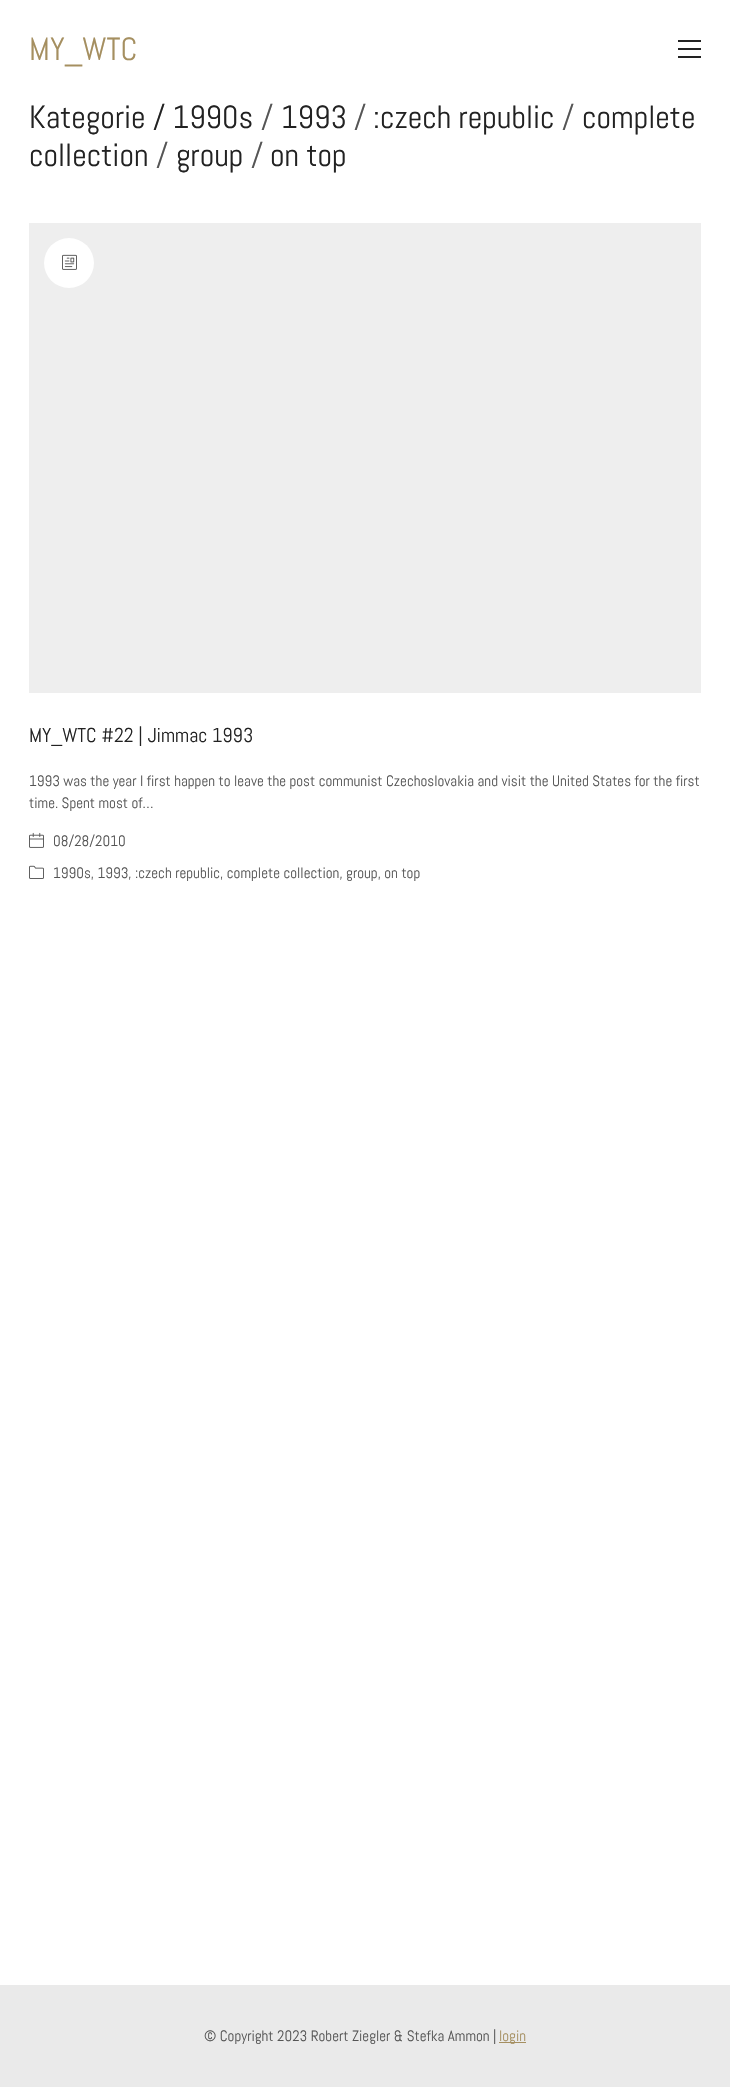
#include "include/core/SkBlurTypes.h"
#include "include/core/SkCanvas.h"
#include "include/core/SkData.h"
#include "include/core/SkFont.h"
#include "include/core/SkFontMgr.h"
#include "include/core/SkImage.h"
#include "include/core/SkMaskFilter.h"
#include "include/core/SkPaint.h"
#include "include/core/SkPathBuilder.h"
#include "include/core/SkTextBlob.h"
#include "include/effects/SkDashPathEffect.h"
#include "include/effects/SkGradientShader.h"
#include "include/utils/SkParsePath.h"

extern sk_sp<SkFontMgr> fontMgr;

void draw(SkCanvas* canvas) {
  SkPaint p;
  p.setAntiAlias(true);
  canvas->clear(SK_ColorWHITE);
  p.setColor(SkColorSetRGB(34, 34, 34));
  canvas->drawRect(SkRect::MakeLTRB(678, 40, 701, 42), p);
  canvas->drawRect(SkRect::MakeLTRB(678, 48, 701, 50), p);
  canvas->drawRect(SkRect::MakeLTRB(678, 56, 701, 58), p);
  p.setColor(SkColorSetRGB(238, 238, 238));
  canvas->drawRect(SkRect::MakeLTRB(29, 223, 701, 693), p);
  p.setColor(SK_ColorWHITE);
  canvas->drawCircle(69, 263, 25, p);
  canvas->drawImageRect(SkImages::DeferredFromEncodedData(SkData::MakeFromFileName("images/1.png")), SkRect::MakeLTRB(62, 254, 77, 270), SkSamplingOptions());
  canvas->drawImageRect(SkImages::DeferredFromEncodedData(SkData::MakeFromFileName("images/2.png")), SkRect::MakeLTRB(29, 832, 44, 848), SkSamplingOptions());
  canvas->drawImageRect(SkImages::DeferredFromEncodedData(SkData::MakeFromFileName("images/3.png")), SkRect::MakeLTRB(29, 865, 44, 879), SkSamplingOptions());
  p.setColor(SkColorSetRGB(234, 234, 234));
  canvas->drawRect(SkRect::MakeLTRB(0, 1985, 730, 2087), p);
  p.setColor(SkColorSetRGB(165, 143, 96));
  canvas->drawRect(SkRect::MakeLTRB(499, 2042, 526, 2043), p);
  SkFont font1(fontMgr->matchFamilyStyle("Abel", SkFontStyle::Normal()), 32);
  font1.setSubpixel(true);
  canvas->drawString("MY_WTC", 29, 60, font1, p);
  p.setColor(SkColorSetRGB(34, 34, 34));
  canvas->drawString("Kategorie / 1990s", 29, 128, font1, p);
  p.setColor(SkColorSetRGB(85, 85, 85));
  canvas->drawString("/", 261, 128, font1, p);
  p.setColor(SkColorSetRGB(34, 34, 34));
  canvas->drawString("1993", 281, 128, font1, p);
  p.setColor(SkColorSetRGB(85, 85, 85));
  canvas->drawString("/", 354, 128, font1, p);
  p.setColor(SkColorSetRGB(34, 34, 34));
  canvas->drawString(":czech republic", 373, 128, font1, p);
  p.setColor(SkColorSetRGB(85, 85, 85));
  canvas->drawString("/", 562, 128, font1, p);
  p.setColor(SkColorSetRGB(34, 34, 34));
  canvas->drawString("complete", 582, 128, font1, p);
  canvas->drawString("collection", 29, 166, font1, p);
  p.setColor(SkColorSetRGB(85, 85, 85));
  canvas->drawString("/", 156, 166, font1, p);
  p.setColor(SkColorSetRGB(34, 34, 34));
  canvas->drawString("group", 176, 166, font1, p);
  p.setColor(SkColorSetRGB(85, 85, 85));
  canvas->drawString("/", 251, 166, font1, p);
  p.setColor(SkColorSetRGB(34, 34, 34));
  canvas->drawString("on top", 270, 166, font1, p);
  SkFont font2(fontMgr->matchFamilyStyle("Abel", SkFontStyle::Normal()), 20);
  font2.setSubpixel(true);
  canvas->drawString("MY_WTC #22 | Jimmac 1993", 29, 742, font2, p);
  SkFont font3(fontMgr->matchFamilyStyle("Abel", SkFontStyle::Normal()), 15);
  font3.setSubpixel(true);
  p.setColor(SkColorSetRGB(85, 85, 85));
  canvas->drawString("1993 was the year I first happen to leave the post communist Czechoslovakia and visit the United States for the first", 29, 786, font3, p);
  canvas->drawString("time. Spent most of…", 29, 808, font3, p);
  canvas->drawString("08/28/2010", 53, 846, font3, p);
  canvas->drawString("1990s, 1993, :czech republic, complete collection, group, on top", 53, 878, font3, p);
  canvas->drawString("© Copyright 2023 Robert Ziegler & Stefka Ammon |", 204, 2041, font3, p);
  p.setColor(SkColorSetRGB(165, 143, 96));
  canvas->drawString("login", 499, 2041, font3, p);
}
